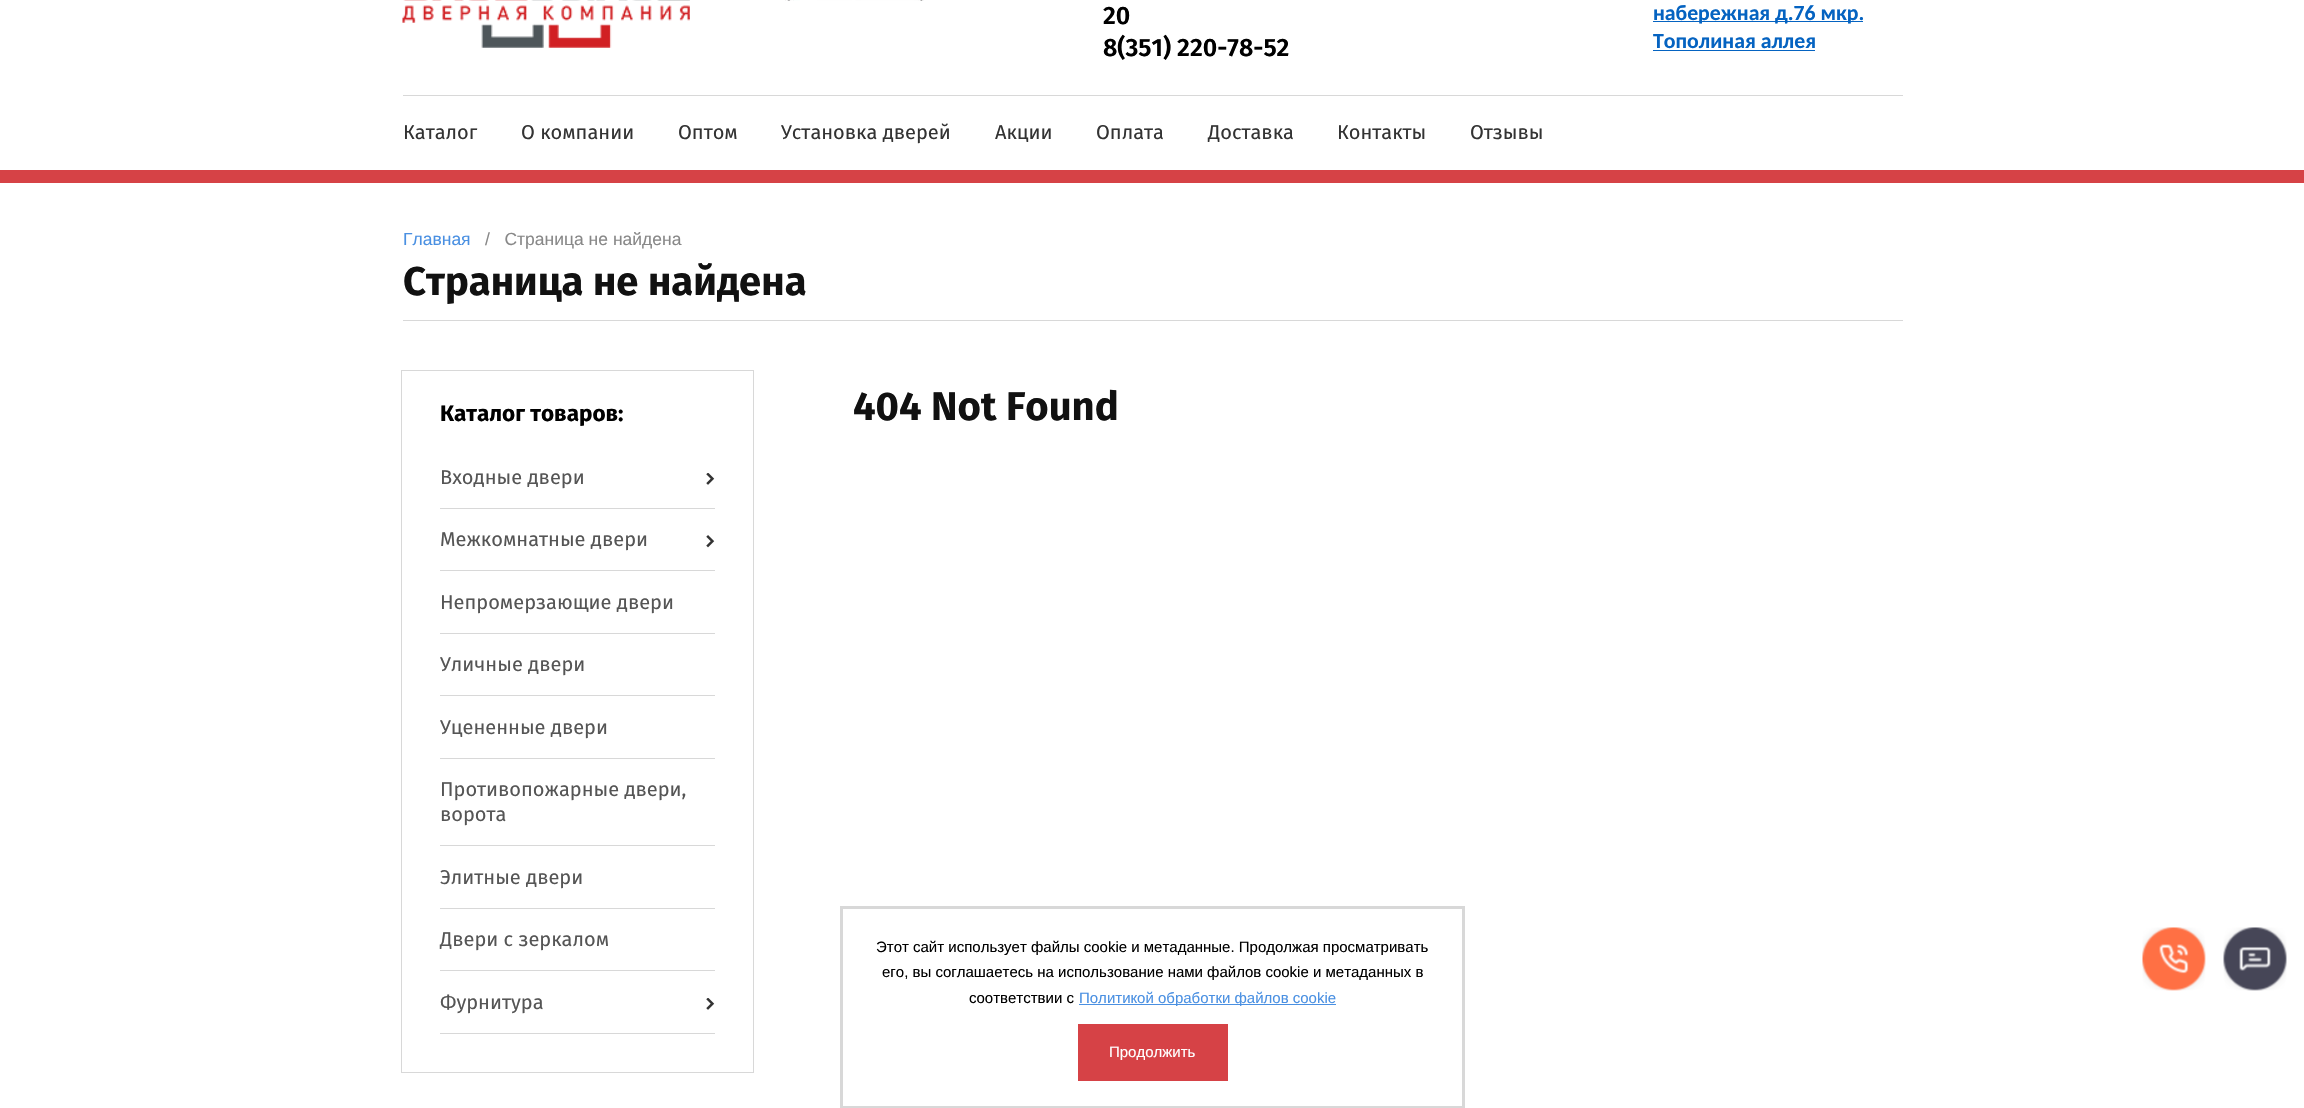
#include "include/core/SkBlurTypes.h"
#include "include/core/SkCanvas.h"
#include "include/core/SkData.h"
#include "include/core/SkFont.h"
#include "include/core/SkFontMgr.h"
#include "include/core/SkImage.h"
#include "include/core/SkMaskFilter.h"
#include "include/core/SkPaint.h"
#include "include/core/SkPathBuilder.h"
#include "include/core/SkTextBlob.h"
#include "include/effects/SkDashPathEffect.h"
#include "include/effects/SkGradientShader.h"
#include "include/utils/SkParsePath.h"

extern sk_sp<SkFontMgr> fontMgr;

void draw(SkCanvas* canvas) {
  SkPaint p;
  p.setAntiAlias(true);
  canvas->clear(SK_ColorWHITE);
  p.setColor(SkColorSetRGB(214, 66, 70));
  canvas->drawRect(SkRect::MakeLTRB(0, 170, 2304, 183), p);
  canvas->drawImageRect(SkImages::DeferredFromEncodedData(SkData::MakeFromFileName("images/1.png")), SkRect::MakeLTRB(402, 0, 690, 48), SkSamplingOptions());
  canvas->drawImageRect(SkImages::DeferredFromEncodedData(SkData::MakeFromFileName("images/2.png")), SkRect::MakeLTRB(785, 0, 924, 1), SkSamplingOptions());
  p.setColor(SkColorSetRGB(5, 99, 193));
  canvas->drawRect(SkRect::MakeLTRB(1653, 21, 1863, 22), p);
  canvas->drawRect(SkRect::MakeLTRB(1653, 50, 1815, 51), p);
  p.setColor(SkColorSetRGB(216, 216, 216));
  canvas->drawRect(SkRect::MakeLTRB(403, 95, 1903, 96), p);
  canvas->drawRect(SkRect::MakeLTRB(403, 320, 1903, 321), p);
  p.setStyle(SkPaint::kStroke_Style);
  p.setStrokeWidth(1);
  canvas->drawRect(SkRect::MakeLTRB(401.5f, 370.5f, 753.5f, 1072.5f), p);
  p.setStyle(SkPaint::kFill_Style);
  canvas->drawRect(SkRect::MakeLTRB(440, 508, 715, 509), p);
  canvas->drawImageRect(SkImages::DeferredFromEncodedData(SkData::MakeFromFileName("images/3.png")), SkRect::MakeLTRB(706, 473, 715, 485), SkSamplingOptions());
  canvas->drawRect(SkRect::MakeLTRB(440, 570, 715, 571), p);
  canvas->drawImageRect(SkImages::DeferredFromEncodedData(SkData::MakeFromFileName("images/4.png")), SkRect::MakeLTRB(706, 535, 715, 548), SkSamplingOptions());
  canvas->drawRect(SkRect::MakeLTRB(440, 633, 715, 634), p);
  canvas->drawRect(SkRect::MakeLTRB(440, 695, 715, 696), p);
  canvas->drawRect(SkRect::MakeLTRB(440, 758, 715, 759), p);
  canvas->drawRect(SkRect::MakeLTRB(440, 845, 715, 846), p);
  canvas->drawRect(SkRect::MakeLTRB(440, 908, 715, 909), p);
  canvas->drawRect(SkRect::MakeLTRB(440, 970, 715, 971), p);
  canvas->drawRect(SkRect::MakeLTRB(440, 1033, 715, 1034), p);
  canvas->drawImageRect(SkImages::DeferredFromEncodedData(SkData::MakeFromFileName("images/3.png")), SkRect::MakeLTRB(706, 998, 715, 1010), SkSamplingOptions());
  canvas->drawImageRect(SkImages::DeferredFromEncodedData(SkData::MakeFromFileName("images/5.png")), SkRect::MakeLTRB(2142, 927, 2206, 991), SkSamplingOptions());
  canvas->drawImageRect(SkImages::DeferredFromEncodedData(SkData::MakeFromFileName("images/6.png")), SkRect::MakeLTRB(2223, 927, 2287, 991), SkSamplingOptions());
  p.setStyle(SkPaint::kStroke_Style);
  p.setStrokeWidth(3);
  canvas->drawRect(SkRect::MakeLTRB(841.5f, 907.5f, 1463.5f, 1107.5f), p);
  p.setStyle(SkPaint::kFill_Style);
  p.setColor(SkColorSetRGB(74, 144, 226));
  canvas->drawRect(SkRect::MakeLTRB(1079, 1004, 1336, 1005), p);
  p.setColor(SkColorSetRGB(214, 66, 70));
  canvas->drawRect(SkRect::MakeLTRB(1078, 1024, 1228, 1081), p);
  SkFont font1(fontMgr->matchFamilyStyle("Fira Sans", SkFontStyle(600, SkFontStyle::kNormal_Width, SkFontStyle::kUpright_Slant)), 25);
  font1.setSubpixel(true);
  p.setColor(SK_ColorBLACK);
  canvas->drawString("20", 1103, 24, font1, p);
  canvas->drawString("8(351) 220-78-52", 1103, 56, font1, p);
  SkFont font2(fontMgr->matchFamilyStyle("Carlito", SkFontStyle::Bold()), 21.75f);
  font2.setSubpixel(true);
  p.setColor(SkColorSetRGB(5, 99, 193));
  canvas->drawString("набережная д.76 мкр.", 1653, 20, font2, p);
  canvas->drawString("Тополиная аллея", 1653, 48, font2, p);
  SkFont font3(fontMgr->matchFamilyStyle("Fira Sans", SkFontStyle::Normal()), 20);
  font3.setSubpixel(true);
  p.setColor(SkColorSetRGB(51, 51, 51));
  canvas->drawString("Каталог", 403, 139, font3, p);
  canvas->drawString("О компании", 521, 139, font3, p);
  canvas->drawString("Оптом", 678, 139, font3, p);
  canvas->drawString("Установка дверей", 781, 139, font3, p);
  canvas->drawString("Акции", 995, 139, font3, p);
  canvas->drawString("Оплата", 1096, 139, font3, p);
  canvas->drawString("Доставка", 1208, 139, font3, p);
  canvas->drawString("Контакты", 1337, 139, font3, p);
  canvas->drawString("Отзывы", 1470, 139, font3, p);
  SkFont font4(fontMgr->matchFamilyStyle("Liberation Sans", SkFontStyle::Normal()), 17.5f);
  font4.setSubpixel(true);
  p.setColor(SkColorSetRGB(74, 144, 226));
  canvas->drawString("Главная", 403, 245, font4, p);
  p.setColor(SkColorSetRGB(136, 136, 136));
  canvas->drawString("/   Страница не найдена", 485, 245, font4, p);
  SkFont font5(fontMgr->matchFamilyStyle("Fira Sans", SkFontStyle::Bold()), 40);
  font5.setSubpixel(true);
  p.setColor(SkColorSetRGB(17, 17, 17));
  canvas->drawString("Страница не найдена", 403, 295, font5, p);
  SkFont font6(fontMgr->matchFamilyStyle("Fira Sans", SkFontStyle::Bold()), 22.5f);
  font6.setSubpixel(true);
  p.setColor(SK_ColorBLACK);
  canvas->drawString("Каталог товаров:", 440, 421, font6, p);
  p.setColor(SkColorSetRGB(85, 85, 85));
  canvas->drawString("Входные двери", 440, 484, font3, p);
  canvas->drawString("Межкомнатные двери", 440, 546, font3, p);
  canvas->drawString("Непромерзающие двери", 440, 609, font3, p);
  canvas->drawString("Уличные двери", 440, 671, font3, p);
  canvas->drawString("Уцененные двери", 440, 734, font3, p);
  canvas->drawString("Противопожарные двери,", 440, 796, font3, p);
  canvas->drawString("ворота", 440, 821, font3, p);
  canvas->drawString("Элитные двери", 440, 884, font3, p);
  canvas->drawString("Двери с зеркалом", 440, 946, font3, p);
  canvas->drawString("Фурнитура", 440, 1009, font3, p);
  p.setColor(SkColorSetRGB(17, 17, 17));
  canvas->drawString("404 Not Found", 853, 420, font5, p);
  SkFont font7(fontMgr->matchFamilyStyle("Liberation Sans", SkFontStyle::Normal()), 15);
  font7.setSubpixel(true);
  p.setColor(SK_ColorBLACK);
  canvas->drawString("Этот сайт использует файлы cookie и метаданные. Продолжая просматривать", 876, 952, font7, p);
  canvas->drawString("его, вы соглашаетесь на использование нами файлов cookie и метаданных в", 882, 977, font7, p);
  canvas->drawString("соответствии с", 969, 1003, font7, p);
  p.setColor(SkColorSetRGB(74, 144, 226));
  canvas->drawString("Политикой обработки файлов cookie", 1079, 1003, font7, p);
  p.setColor(SK_ColorWHITE);
  canvas->drawString("Продолжить", 1109, 1057, font7, p);
}
